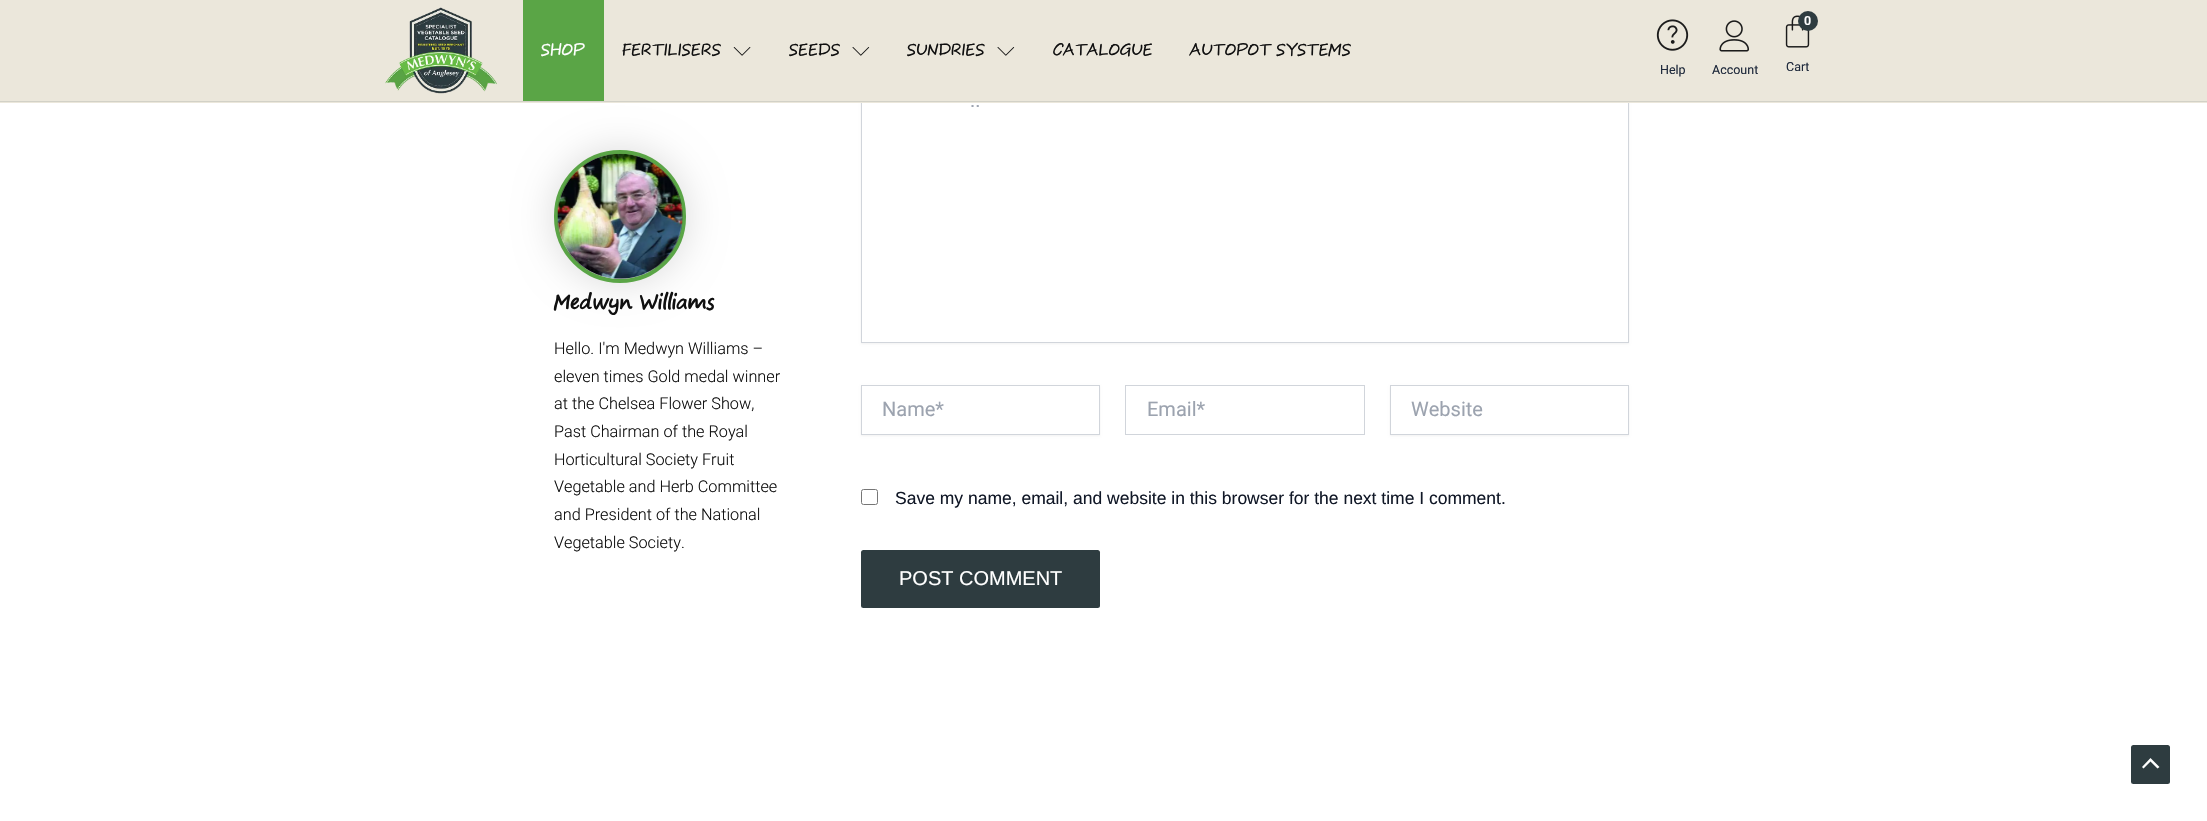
#include "include/core/SkBlurTypes.h"
#include "include/core/SkCanvas.h"
#include "include/core/SkData.h"
#include "include/core/SkFont.h"
#include "include/core/SkFontMgr.h"
#include "include/core/SkImage.h"
#include "include/core/SkMaskFilter.h"
#include "include/core/SkPaint.h"
#include "include/core/SkPathBuilder.h"
#include "include/core/SkTextBlob.h"
#include "include/effects/SkDashPathEffect.h"
#include "include/effects/SkGradientShader.h"
#include "include/utils/SkParsePath.h"

extern sk_sp<SkFontMgr> fontMgr;

void draw(SkCanvas* canvas) {
  SkPaint p;
  p.setAntiAlias(true);
  canvas->clear(SK_ColorWHITE);
  p.setColor(SkColorSetARGB(38, 0, 0, 0));
  p.setMaskFilter(SkMaskFilter::MakeBlur(kNormal_SkBlurStyle, 19));
  canvas->drawRoundRect(SkRect::MakeLTRB(554, 150, 686, 283), 66, 66, p);
  p.setMaskFilter(nullptr);
  p.setColor(SkColorSetARGB(13, 0, 0, 0));
  p.setMaskFilter(SkMaskFilter::MakeBlur(kNormal_SkBlurStyle, 1));
  canvas->drawRect(SkRect::MakeLTRB(861, 71, 1629, 344), p);
  p.setMaskFilter(nullptr);
  p.setColor(SK_ColorWHITE);
  canvas->drawRect(SkRect::MakeLTRB(862, 103, 1628, 342), p);
  p.setStyle(SkPaint::kStroke_Style);
  p.setStrokeWidth(1);
  p.setColor(SkColorSetRGB(209, 213, 219));
  canvas->drawRect(SkRect::MakeLTRB(861.5f, 70.5f, 1628.5f, 342.5f), p);
  p.setStyle(SkPaint::kFill_Style);
  p.setColor(SkColorSetRGB(235, 231, 219));
  canvas->drawRect(SkRect::MakeLTRB(0, 0, 2207, 103), p);
  p.setColor(SkColorSetRGB(210, 209, 199));
  canvas->drawRect(SkRect::MakeLTRB(0, 101, 2207, 102), p);
  canvas->drawImageRect(SkImages::DeferredFromEncodedData(SkData::MakeFromFileName("images/1.png")), SkRect::MakeLTRB(385, 7, 497, 94), SkSamplingOptions());
  p.setColor(SkColorSetRGB(90, 165, 70));
  canvas->drawRect(SkRect::MakeLTRB(523, 0, 604, 101), p);
  canvas->drawImageRect(SkImages::DeferredFromEncodedData(SkData::MakeFromFileName("images/2.png")), SkRect::MakeLTRB(733, 47, 751, 56), SkSamplingOptions());
  canvas->drawImageRect(SkImages::DeferredFromEncodedData(SkData::MakeFromFileName("images/3.png")), SkRect::MakeLTRB(852, 47, 870, 56), SkSamplingOptions());
  canvas->drawImageRect(SkImages::DeferredFromEncodedData(SkData::MakeFromFileName("images/3.png")), SkRect::MakeLTRB(997, 47, 1015, 56), SkSamplingOptions());
  canvas->drawImageRect(SkImages::DeferredFromEncodedData(SkData::MakeFromFileName("images/4.png")), SkRect::MakeLTRB(1656, 19, 1689, 51), SkSamplingOptions());
  canvas->drawImageRect(SkImages::DeferredFromEncodedData(SkData::MakeFromFileName("images/5.png")), SkRect::MakeLTRB(1719, 20, 1750, 52), SkSamplingOptions());
  canvas->drawImageRect(SkImages::DeferredFromEncodedData(SkData::MakeFromFileName("images/6.png")), SkRect::MakeLTRB(1785, 15, 1810, 48), SkSamplingOptions());
  p.setColor(SkColorSetRGB(46, 60, 64));
  canvas->drawCircle(1808, 21, 10, p);
  p.setStyle(SkPaint::kStroke_Style);
  p.setStrokeWidth(4);
  p.setColor(SkColorSetRGB(90, 165, 70));
  canvas->drawRoundRect(SkRect::MakeLTRB(556, 152, 684, 281), 64, 64, p);
  canvas->drawImageRect(SkImages::DeferredFromEncodedData(SkData::MakeFromFileName("images/7.png")), SkRect::MakeLTRB(557, 153, 683, 279), SkSamplingOptions());
  p.setStyle(SkPaint::kFill_Style);
  p.setColor(SkColorSetARGB(13, 0, 0, 0));
  p.setMaskFilter(SkMaskFilter::MakeBlur(kNormal_SkBlurStyle, 1));
  canvas->drawRect(SkRect::MakeLTRB(861, 386, 1100, 436), p);
  p.setMaskFilter(nullptr);
  p.setColor(SK_ColorWHITE);
  canvas->drawRect(SkRect::MakeLTRB(861.5f, 385.5f, 1099.5f, 434.5f), p);
  p.setStyle(SkPaint::kStroke_Style);
  p.setStrokeWidth(1);
  p.setColor(SkColorSetRGB(209, 213, 219));
  canvas->drawRect(SkRect::MakeLTRB(861.5f, 385.5f, 1099.5f, 434.5f), p);
  canvas->drawRect(SkRect::MakeLTRB(1125.5f, 385.5f, 1364.5f, 434.5f), p);
  p.setStyle(SkPaint::kFill_Style);
  p.setColor(SkColorSetARGB(13, 0, 0, 0));
  p.setMaskFilter(SkMaskFilter::MakeBlur(kNormal_SkBlurStyle, 1));
  canvas->drawRect(SkRect::MakeLTRB(1390, 386, 1629, 436), p);
  p.setMaskFilter(nullptr);
  p.setColor(SK_ColorWHITE);
  canvas->drawRect(SkRect::MakeLTRB(1390.5f, 385.5f, 1628.5f, 434.5f), p);
  p.setStyle(SkPaint::kStroke_Style);
  p.setColor(SkColorSetRGB(209, 213, 219));
  canvas->drawRect(SkRect::MakeLTRB(1390.5f, 385.5f, 1628.5f, 434.5f), p);
  p.setColor(SkColorSetRGB(118, 118, 118));
  canvas->drawRoundRect(SkRect::MakeLTRB(861.5f, 489.5f, 877.5f, 504.5f), 2, 2, p);
  p.setStyle(SkPaint::kFill_Style);
  p.setColor(SkColorSetRGB(46, 60, 64));
  canvas->drawRoundRect(SkRect::MakeLTRB(861, 550, 1100, 608), 2.5f, 2.5f, p);
  canvas->drawRoundRect(SkRect::MakeLTRB(2131, 745, 2170, 784), 2.5f, 2.5f, p);
  p.setColor(SK_ColorWHITE);
  canvas->drawPath(SkPathBuilder().moveTo(2159.5f, 767).lineTo(2150.5f, 758).lineTo(2142, 767).lineTo(2143.5f, 768.5f).lineTo(2150.5f, 761.5f).lineTo(2157.5f, 768.5f).close().detach(), p);
  SkFont font1(fontMgr->matchFamilyStyle("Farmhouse", SkFontStyle::Normal()), 17.5f);
  font1.setSubpixel(true);
  canvas->drawString("SHOP", 541, 55, font1, p);
  p.setColor(SkColorSetRGB(16, 16, 16));
  canvas->drawString("FERTILISERS", 622, 55, font1, p);
  canvas->drawString("SEEDS", 789, 55, font1, p);
  canvas->drawString("SUNDRIES", 907, 55, font1, p);
  canvas->drawString("CATALOGUE", 1053, 55, font1, p);
  canvas->drawString("AUTOPOT SYSTEMS", 1190, 55, font1, p);
  SkFont font2(fontMgr->matchFamilyStyle("Roboto", SkFontStyle::Normal()), 12.5f);
  font2.setSubpixel(true);
  p.setColor(SkColorSetRGB(30, 41, 59));
  canvas->drawString("Help", 1660, 74, font2, p);
  canvas->drawString("Account", 1712, 74, font2, p);
  SkFont font3(fontMgr->matchFamilyStyle("Roboto", SkFontStyle(600, SkFontStyle::kNormal_Width, SkFontStyle::kUpright_Slant)), 12.5f);
  font3.setSubpixel(true);
  p.setColor(SK_ColorWHITE);
  canvas->drawString("0", 1804, 25, font3, p);
  p.setColor(SkColorSetRGB(30, 41, 59));
  canvas->drawString("Cart", 1786, 71, font2, p);
  SkFont font4(fontMgr->matchFamilyStyle("Farmhouse", SkFontStyle::Bold()), 21.25f);
  font4.setSubpixel(true);
  p.setColor(SkColorSetRGB(16, 16, 16));
  canvas->drawString("Medwyn Williams", 554, 309, font4, p);
  SkFont font5(fontMgr->matchFamilyStyle("Roboto", SkFontStyle(300, SkFontStyle::kNormal_Width, SkFontStyle::kUpright_Slant)), 16.25f);
  font5.setSubpixel(true);
  canvas->drawString("Hello. I'm Medwyn Williams –", 554, 354, font5, p);
  canvas->drawString("eleven times Gold medal winner", 554, 382, font5, p);
  canvas->drawString("at the Chelsea Flower Show,", 554, 409, font5, p);
  canvas->drawString("Past Chairman of the Royal", 554, 437, font5, p);
  canvas->drawString("Horticultural Society Fruit", 554, 465, font5, p);
  canvas->drawString("Vegetable and Herb Committee", 554, 492, font5, p);
  canvas->drawString("and President of the National", 554, 520, font5, p);
  canvas->drawString("Vegetable Society.", 554, 548, font5, p);
  SkFont font6(fontMgr->matchFamilyStyle("Roboto", SkFontStyle::Normal()), 20);
  font6.setSubpixel(true);
  p.setColor(SkColorSetRGB(156, 163, 175));
  canvas->drawString("..", 970, 107, font6, p);
  canvas->drawString("Name*", 882, 416, font6, p);
  canvas->drawString("Email*", 1147, 416, font6, p);
  canvas->drawString("Website", 1411, 416, font6, p);
  SkFont font7(fontMgr->matchFamilyStyle("Liberation Sans", SkFontStyle::Normal()), 17.5f);
  font7.setSubpixel(true);
  p.setColor(SkColorSetRGB(17, 24, 39));
  canvas->drawString("Save my name, email, and website in this browser for the next time I comment.", 895, 504, font7, p);
  SkFont font8(fontMgr->matchFamilyStyle("Liberation Sans", SkFontStyle::Normal()), 20);
  font8.setSubpixel(true);
  p.setColor(SK_ColorWHITE);
  canvas->drawString("POST COMMENT", 899, 585, font8, p);
}
